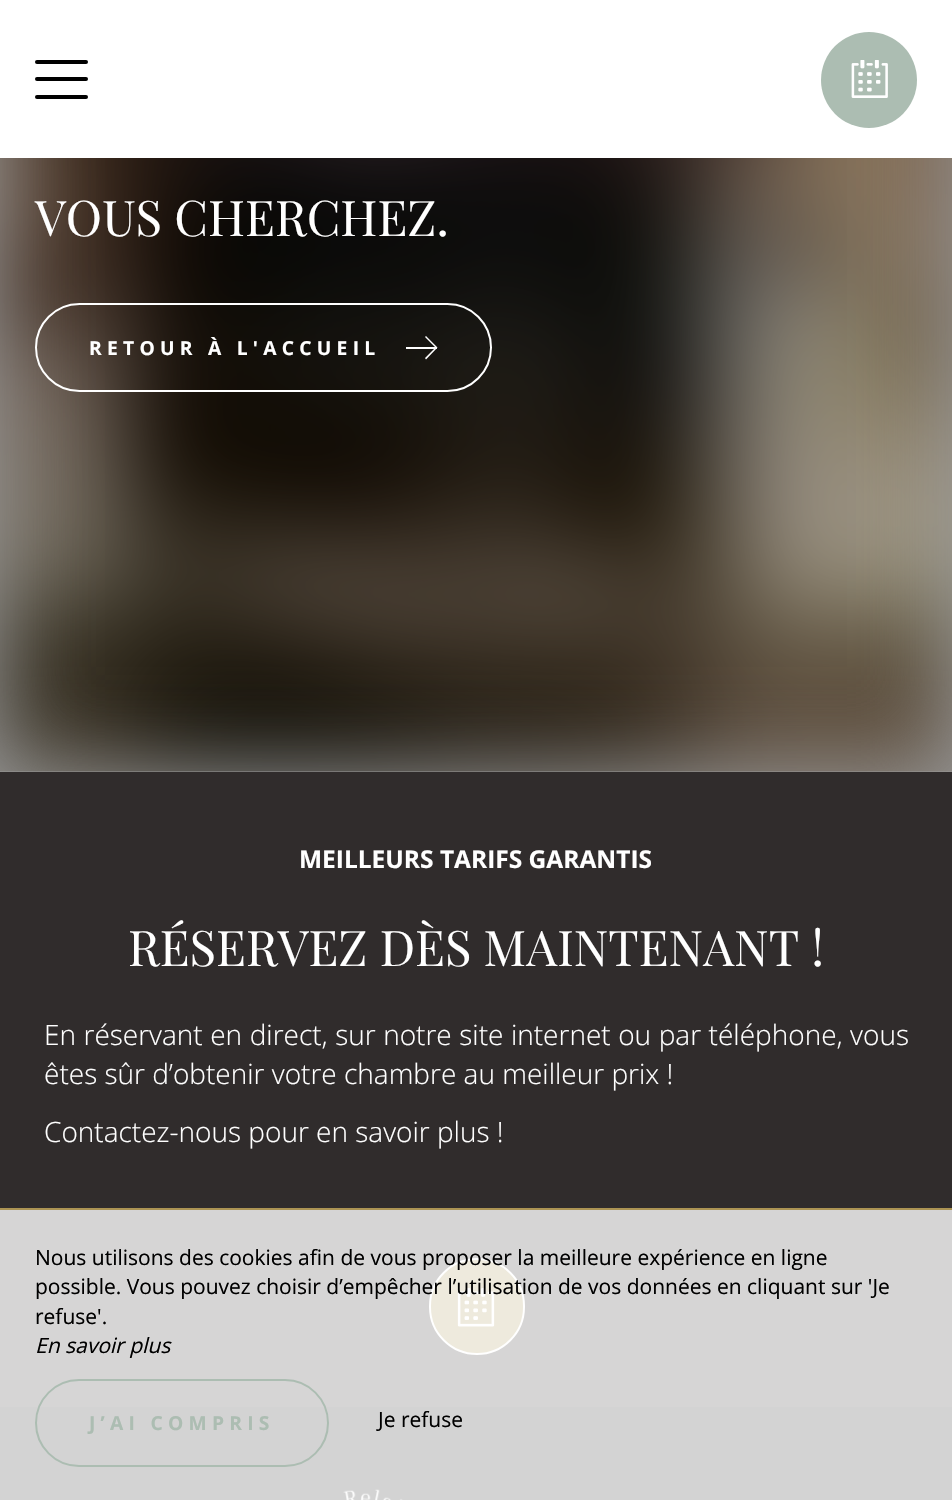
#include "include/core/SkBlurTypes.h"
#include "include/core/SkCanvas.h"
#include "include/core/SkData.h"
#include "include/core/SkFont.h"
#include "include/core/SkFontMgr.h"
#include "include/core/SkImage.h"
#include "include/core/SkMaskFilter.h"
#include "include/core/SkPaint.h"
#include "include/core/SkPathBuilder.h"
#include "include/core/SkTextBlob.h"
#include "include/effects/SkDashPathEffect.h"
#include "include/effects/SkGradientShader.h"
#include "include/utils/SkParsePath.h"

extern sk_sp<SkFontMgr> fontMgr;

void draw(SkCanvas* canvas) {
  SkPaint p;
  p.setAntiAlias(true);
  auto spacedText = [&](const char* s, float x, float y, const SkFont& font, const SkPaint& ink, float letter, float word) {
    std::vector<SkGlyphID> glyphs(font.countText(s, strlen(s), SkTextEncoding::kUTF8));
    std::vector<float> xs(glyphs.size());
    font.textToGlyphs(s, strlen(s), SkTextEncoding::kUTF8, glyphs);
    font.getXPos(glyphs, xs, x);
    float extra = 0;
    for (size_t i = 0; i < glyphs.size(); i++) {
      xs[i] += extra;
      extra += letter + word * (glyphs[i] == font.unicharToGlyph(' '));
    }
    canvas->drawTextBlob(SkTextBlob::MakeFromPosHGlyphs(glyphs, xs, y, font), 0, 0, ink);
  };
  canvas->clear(SkColorSetRGB(153, 153, 153));
  p.setColor(SK_ColorWHITE);
  canvas->drawRect(SkRect::MakeLTRB(0, 0, 952, 158), p);
  p.setColor(SK_ColorBLACK);
  canvas->drawRoundRect(SkRect::MakeLTRB(35, 60, 88, 64), 2, 2, p);
  canvas->drawRoundRect(SkRect::MakeLTRB(35, 77, 88, 81), 2, 2, p);
  canvas->drawRoundRect(SkRect::MakeLTRB(35, 95, 88, 99), 2, 2, p);
  p.setColor(SkColorSetRGB(172, 189, 178));
  canvas->drawCircle(869, 80, 48, p);
  canvas->drawImageRect(SkImages::DeferredFromEncodedData(SkData::MakeFromFileName("images/1.png")), SkRect::MakeLTRB(851, 60, 888, 98), SkSamplingOptions());
  canvas->drawImageRect(SkImages::DeferredFromEncodedData(SkData::MakeFromFileName("images/2.png")), SkRect::MakeLTRB(0, 158, 952, 772), SkSamplingOptions());
  p.setStyle(SkPaint::kStroke_Style);
  p.setStrokeWidth(2);
  p.setColor(SK_ColorWHITE);
  canvas->drawRoundRect(SkRect::MakeLTRB(36, 304, 491, 391), 43.5f, 43.5f, p);
  p.setStyle(SkPaint::kFill_Style);
  canvas->drawPath(SkPathBuilder().moveTo(425, 337).lineTo(426, 336).lineTo(437.5f, 347.5f).lineTo(426, 359.5f).lineTo(425, 358).lineTo(435.5f, 347.5f).close().detach(), p);
  canvas->drawRect(SkRect::MakeLTRB(406, 347, 437, 349), p);
  p.setColor(SkColorSetRGB(211, 211, 211));
  canvas->drawRect(SkRect::MakeLTRB(0, 1407, 952, 1500), p);
  p.setColor(SkColorSetRGB(48, 44, 44));
  canvas->drawRect(SkRect::MakeLTRB(0, 772, 952, 1208), p);
  p.setColor(SkColorSetRGB(214, 213, 213));
  canvas->drawRect(SkRect::MakeLTRB(0, 1210, 952, 1407), p);
  p.setColor(SkColorSetRGB(238, 234, 221));
  canvas->drawRoundRect(SkRect::MakeLTRB(430, 1259, 524, 1354), 47, 47, p);
  p.setStyle(SkPaint::kStroke_Style);
  p.setColor(SK_ColorWHITE);
  canvas->drawRoundRect(SkRect::MakeLTRB(430, 1259, 524, 1354), 47, 47, p);
  canvas->drawImageRect(SkImages::DeferredFromEncodedData(SkData::MakeFromFileName("images/3.png")), SkRect::MakeLTRB(457, 1288, 495, 1327), SkSamplingOptions());
  canvas->drawImageRect(SkImages::DeferredFromEncodedData(SkData::MakeFromFileName("images/4.png")), SkRect::MakeLTRB(343, 1489, 403, 1500), SkSamplingOptions());
  p.setStyle(SkPaint::kFill_Style);
  p.setColor(SkColorSetRGB(172, 148, 84));
  canvas->drawRect(SkRect::MakeLTRB(0, 1208, 952, 1210), p);
  p.setStyle(SkPaint::kStroke_Style);
  p.setColor(SkColorSetRGB(172, 189, 178));
  canvas->drawRoundRect(SkRect::MakeLTRB(36, 1380, 328, 1466), 43, 43, p);
  SkFont font1(fontMgr->matchFamilyStyle("Playfair Display", SkFontStyle::Normal()), 49);
  font1.setSubpixel(true);
  p.setStyle(SkPaint::kFill_Style);
  p.setColor(SK_ColorWHITE);
  canvas->drawString("VOUS CHERCHEZ.", 35, 236, font1, p);
  SkFont font2(fontMgr->matchFamilyStyle("Open Sans", SkFontStyle::Bold()), 19.25f);
  font2.setSubpixel(true);
  spacedText("RETOUR À L'ACCUEIL", 89, 355, font2, p, 5.25f, 0);
  SkFont font3(fontMgr->matchFamilyStyle("Open Sans", SkFontStyle::Bold()), 24.5f);
  font3.setSubpixel(true);
  canvas->drawString("MEILLEURS TARIFS GARANTIS", 299, 868, font3, p);
  canvas->drawString("RÉSERVEZ DÈS MAINTENANT !", 128, 966, font1, p);
  SkFont font4(fontMgr->matchFamilyStyle("Open Sans", SkFontStyle(300, SkFontStyle::kNormal_Width, SkFontStyle::kUpright_Slant)), 28);
  font4.setSubpixel(true);
  spacedText("En réservant en direct, sur notre site internet ou par téléphone, vous", 44, 1045, font4, p, 0, 0.25f);
  canvas->drawString("êtes sûr d’obtenir votre chambre au meilleur prix !", 44, 1084, font4, p);
  canvas->drawString("Contactez-nous pour en savoir plus !", 44, 1142, font4, p);
  SkFont font5(fontMgr->matchFamilyStyle("Open Sans", SkFontStyle::Normal()), 21);
  font5.setSubpixel(true);
  p.setColor(SK_ColorBLACK);
  canvas->drawString("Nous utilisons des cookies afin de vous proposer la meilleure expérience en ligne", 35, 1265, font5, p);
  canvas->drawString("possible. Vous pouvez choisir d’empêcher l’utilisation de vos données en cliquant sur 'Je", 35, 1294, font5, p);
  canvas->drawString("refuse'.", 35, 1324, font5, p);
  SkFont font6(fontMgr->matchFamilyStyle("Open Sans", SkFontStyle::Italic()), 21);
  font6.setSubpixel(true);
  canvas->drawString("En savoir plus", 35, 1353, font6, p);
  p.setColor(SkColorSetRGB(172, 189, 178));
  spacedText("J’AI COMPRIS", 89, 1430, font2, p, 5.25f, 0);
  p.setColor(SK_ColorBLACK);
  canvas->drawString("Je refuse", 378, 1427, font5, p);
}
